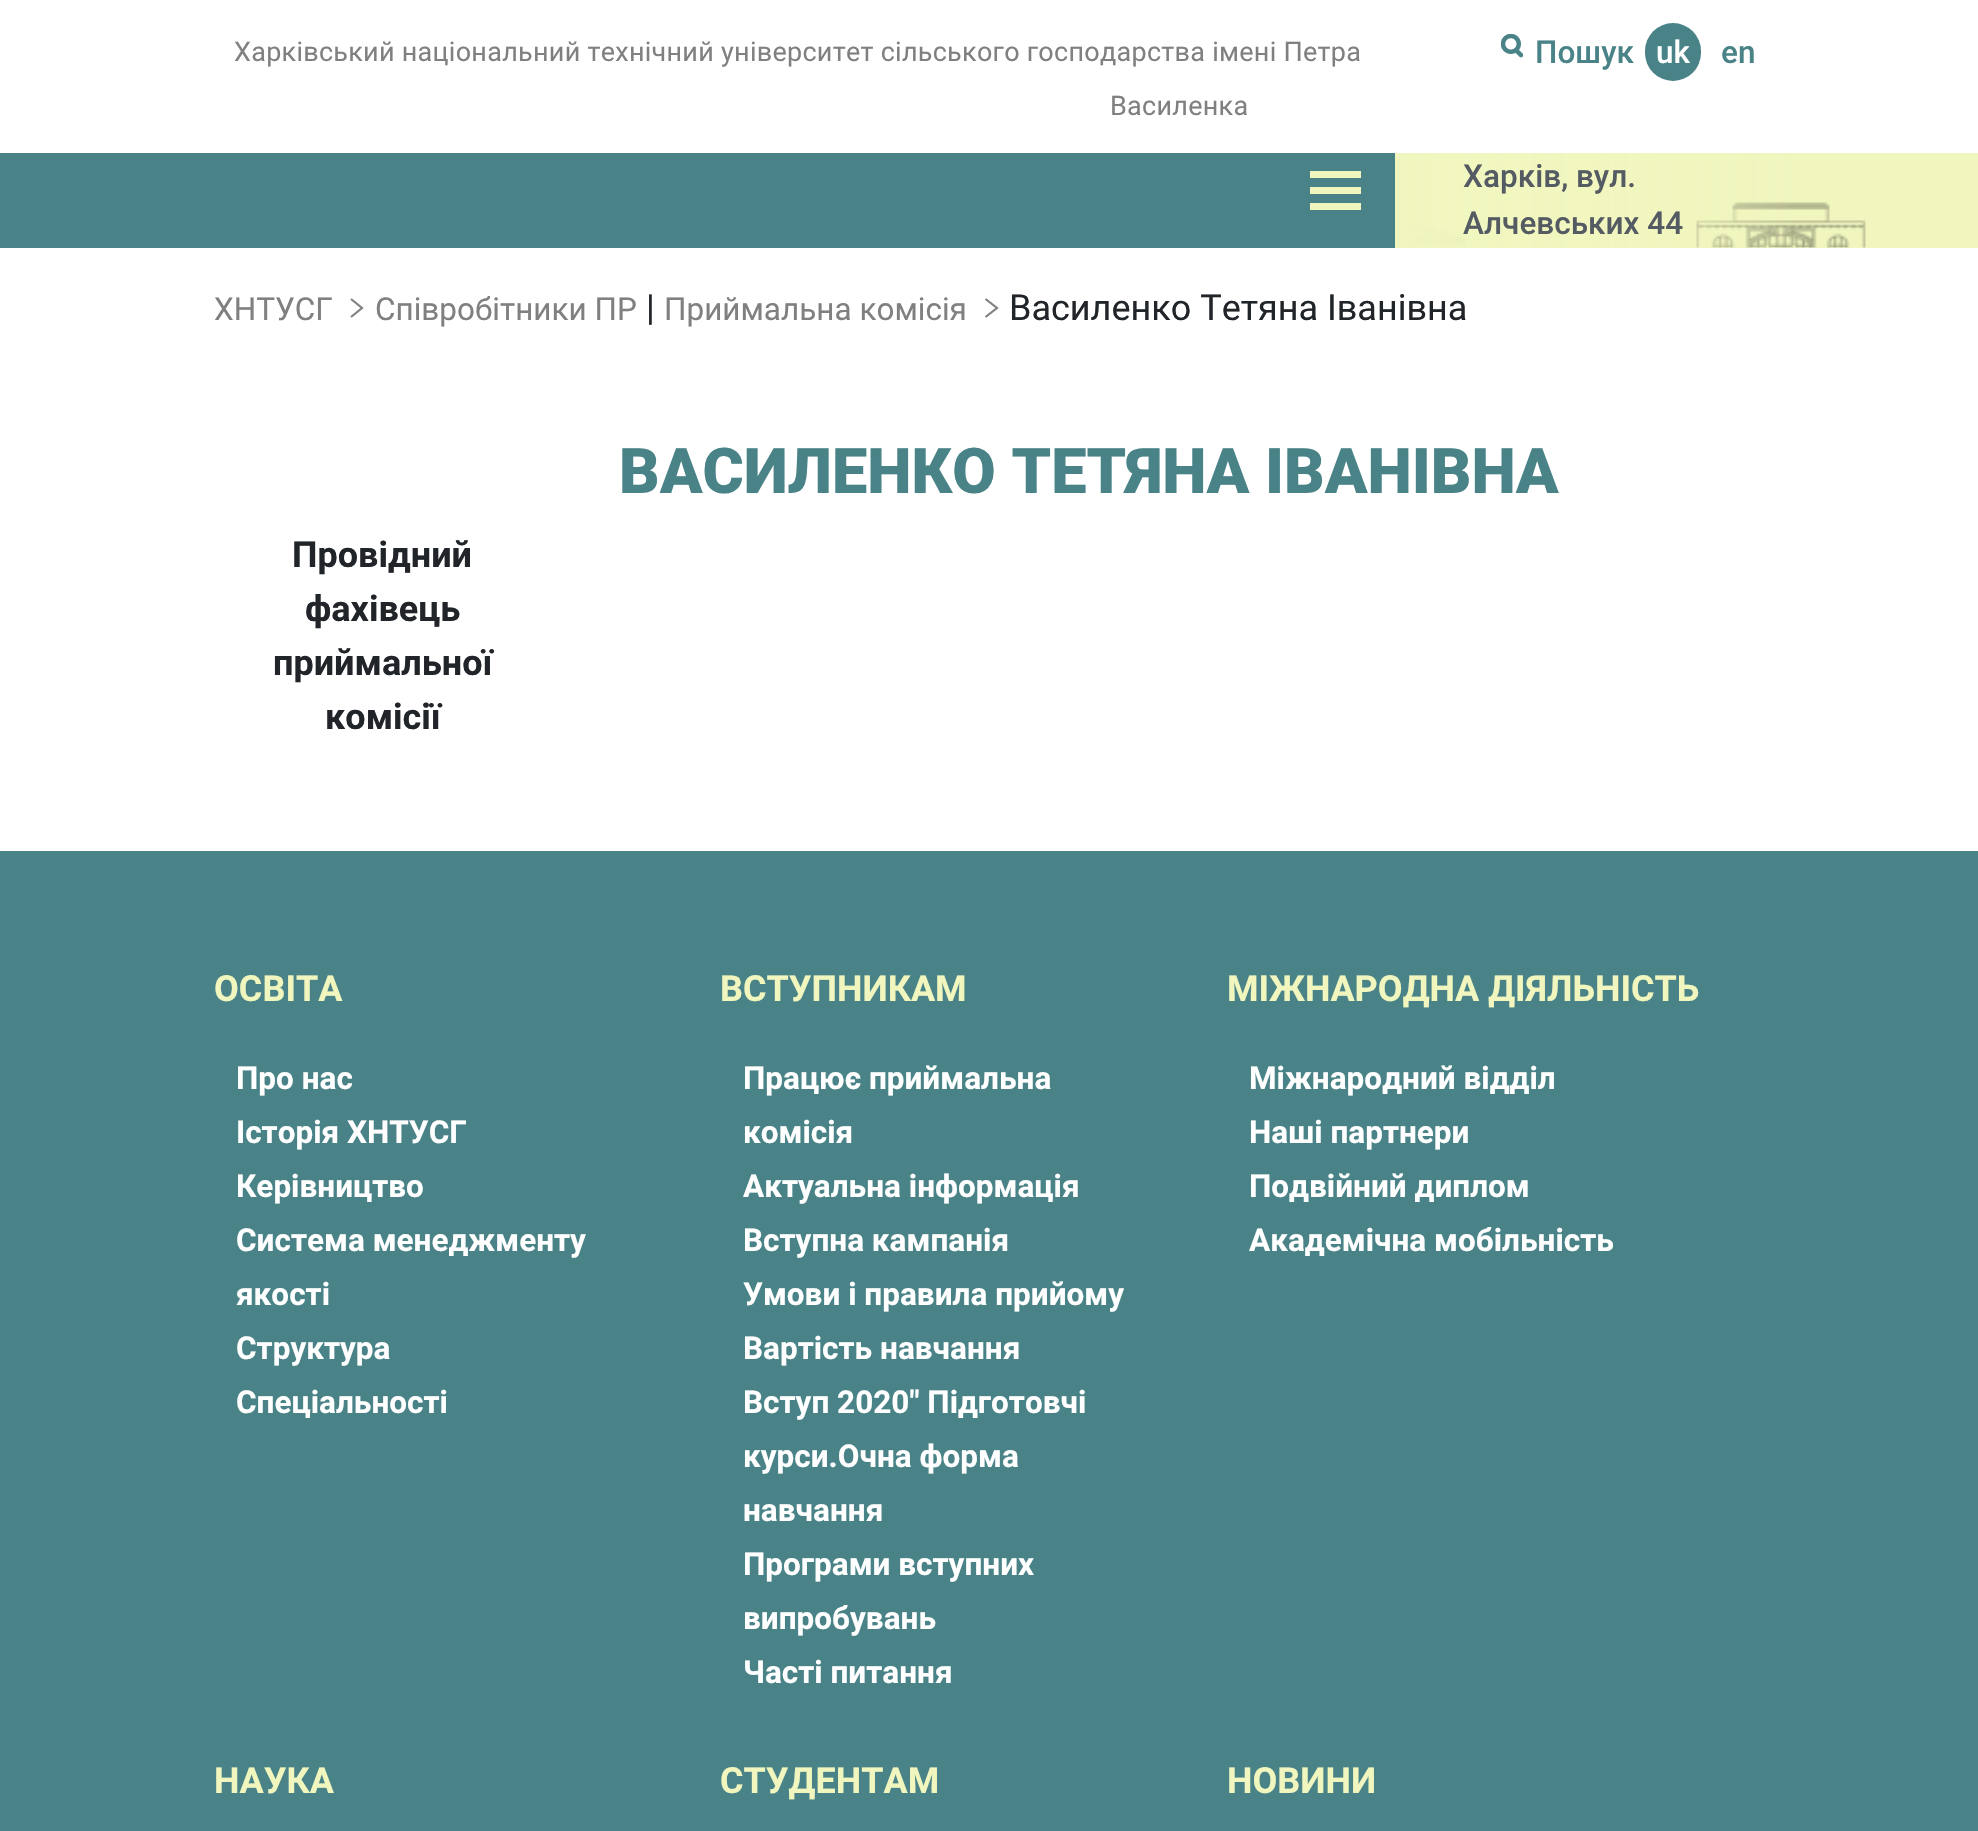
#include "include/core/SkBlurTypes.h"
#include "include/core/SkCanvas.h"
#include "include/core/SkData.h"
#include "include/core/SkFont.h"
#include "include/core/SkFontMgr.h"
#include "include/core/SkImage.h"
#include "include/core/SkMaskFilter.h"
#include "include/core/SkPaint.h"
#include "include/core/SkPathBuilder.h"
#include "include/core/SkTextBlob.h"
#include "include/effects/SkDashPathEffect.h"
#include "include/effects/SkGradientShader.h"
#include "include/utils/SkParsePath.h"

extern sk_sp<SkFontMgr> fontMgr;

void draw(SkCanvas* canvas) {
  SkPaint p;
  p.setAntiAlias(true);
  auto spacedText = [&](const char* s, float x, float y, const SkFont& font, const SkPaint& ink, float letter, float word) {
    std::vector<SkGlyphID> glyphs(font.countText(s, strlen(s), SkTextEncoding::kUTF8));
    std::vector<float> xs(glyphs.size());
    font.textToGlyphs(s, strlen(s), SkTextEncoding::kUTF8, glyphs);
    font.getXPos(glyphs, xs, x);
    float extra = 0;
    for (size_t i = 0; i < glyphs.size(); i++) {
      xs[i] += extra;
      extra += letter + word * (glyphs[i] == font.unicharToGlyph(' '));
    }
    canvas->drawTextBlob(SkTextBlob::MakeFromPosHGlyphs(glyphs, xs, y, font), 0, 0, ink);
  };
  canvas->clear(SK_ColorWHITE);
  canvas->drawImageRect(SkImages::DeferredFromEncodedData(SkData::MakeFromFileName("images/1.png")), SkRect::MakeLTRB(1501, 34, 1523, 58), SkSamplingOptions());
  p.setColor(SkColorSetRGB(73, 131, 135));
  canvas->drawRoundRect(SkRect::MakeLTRB(1645, 23, 1701, 81), 28, 28, p);
  canvas->drawRect(SkRect::MakeLTRB(0, 153, 1395, 248), p);
  p.setColor(SkColorSetRGB(241, 246, 191));
  canvas->drawRect(SkRect::MakeLTRB(1401, 153, 1978, 248), p);
  canvas->drawImageRect(SkImages::DeferredFromEncodedData(SkData::MakeFromFileName("images/2.png")), SkRect::MakeLTRB(1401, 202, 1866, 248), SkSamplingOptions());
  canvas->drawRect(SkRect::MakeLTRB(1310, 171, 1361, 178), p);
  canvas->drawRect(SkRect::MakeLTRB(1310, 187, 1361, 194), p);
  canvas->drawRect(SkRect::MakeLTRB(1310, 203, 1361, 210), p);
  {
    const SkColor colors[] = {SkColorSetRGB(241, 246, 191), SkColorSetARGB(204, 241, 246, 191), SkColorSetARGB(0, 241, 246, 191)};
    const float stops[] = {0, 0.5f, 1};
    const SkPoint ends[] = {{1395, 270}, {1800, 270}};
    p.setShader(SkGradientShader::MakeLinear(ends, colors, stops, 3, SkTileMode::kClamp));
    p.setAlpha(255);
  }
  canvas->drawRect(SkRect::MakeLTRB(1395, 153, 1789, 248), p);
  p.setStyle(SkPaint::kStroke_Style);
  p.setStrokeWidth(2.2f);
  p.setShader(nullptr);
  p.setColor(SkColorSetRGB(128, 128, 128));
  canvas->drawPath(SkPathBuilder().moveTo(351, 299).lineTo(362, 308).lineTo(351, 317).detach(), p);
  canvas->drawPath(SkPathBuilder().moveTo(985.5f, 299).lineTo(997, 308).lineTo(985.5f, 317).detach(), p);
  p.setStyle(SkPaint::kFill_Style);
  p.setColor(SkColorSetRGB(73, 131, 135));
  canvas->drawRect(SkRect::MakeLTRB(0, 851, 1978, 1831), p);
  SkFont font1(fontMgr->matchFamilyStyle("Roboto", SkFontStyle::Normal()), 27);
  font1.setSubpixel(true);
  p.setColor(SkColorSetRGB(128, 128, 128));
  spacedText("Харківський національний технічний університет сільського господарства імені Петра", 234, 61, font1, p, 0.27f, 0);
  spacedText("Василенка", 1110, 115, font1, p, 0.27f, 0);
  SkFont font2(fontMgr->matchFamilyStyle("Roboto", SkFontStyle(500, SkFontStyle::kNormal_Width, SkFontStyle::kUpright_Slant)), 31.5f);
  font2.setSubpixel(true);
  p.setColor(SkColorSetRGB(73, 131, 135));
  canvas->drawString("Пошук", 1535, 63, font2, p);
  p.setColor(SK_ColorWHITE);
  canvas->drawString("uk", 1656, 63, font2, p);
  p.setColor(SkColorSetRGB(73, 131, 135));
  canvas->drawString("en", 1721, 63, font2, p);
  p.setColor(SkColorSetRGB(84, 91, 98));
  canvas->drawString("Харкiв, вул.", 1463, 187, font2, p);
  canvas->drawString("Алчевських 44", 1463, 234, font2, p);
  SkFont font3(fontMgr->matchFamilyStyle("Roboto", SkFontStyle::Normal()), 31.5f);
  font3.setSubpixel(true);
  p.setColor(SkColorSetRGB(128, 128, 128));
  canvas->drawString("ХНТУСГ", 214, 320, font3, p);
  canvas->drawString("Співробітники ПР", 375, 320, font3, p);
  SkFont font4(fontMgr->matchFamilyStyle("Roboto", SkFontStyle::Normal()), 36);
  font4.setSubpixel(true);
  p.setColor(SkColorSetRGB(33, 37, 41));
  canvas->drawString("|", 646, 320, font4, p);
  p.setColor(SkColorSetRGB(128, 128, 128));
  canvas->drawString("Приймальна комісія", 664, 320, font3, p);
  p.setColor(SkColorSetRGB(33, 37, 41));
  canvas->drawString("Василенко Тетяна Іванівна", 1009, 320, font4, p);
  SkFont font5(fontMgr->matchFamilyStyle("Roboto", SkFontStyle(900, SkFontStyle::kNormal_Width, SkFontStyle::kUpright_Slant)), 63);
  font5.setSubpixel(true);
  p.setColor(SkColorSetRGB(73, 131, 135));
  canvas->drawString("ВАСИЛЕНКО ТЕТЯНА ІВАНІВНА", 619, 493, font5, p);
  SkFont font6(fontMgr->matchFamilyStyle("Roboto", SkFontStyle::Bold()), 36);
  font6.setSubpixel(true);
  p.setColor(SkColorSetRGB(33, 37, 41));
  canvas->drawString("Провідний", 292, 567, font6, p);
  canvas->drawString("фахівець", 305, 621, font6, p);
  canvas->drawString("приймальної", 273, 675, font6, p);
  canvas->drawString("комісії", 325, 729, font6, p);
  p.setColor(SkColorSetRGB(241, 246, 191));
  canvas->drawString("ОСВІТА", 214, 1001, font6, p);
  SkFont font7(fontMgr->matchFamilyStyle("Roboto", SkFontStyle::Bold()), 31.5f);
  font7.setSubpixel(true);
  p.setColor(SK_ColorWHITE);
  canvas->drawString("Про нас", 236, 1089, font7, p);
  canvas->drawString("Історія ХНТУСГ", 236, 1143, font7, p);
  canvas->drawString("Керівництво", 236, 1197, font7, p);
  canvas->drawString("Система менеджменту", 236, 1251, font7, p);
  canvas->drawString("якості", 236, 1305, font7, p);
  canvas->drawString("Структура", 236, 1359, font7, p);
  canvas->drawString("Спеціальності", 236, 1413, font7, p);
  p.setColor(SkColorSetRGB(241, 246, 191));
  canvas->drawString("ВСТУПНИКАМ", 720, 1001, font6, p);
  p.setColor(SK_ColorWHITE);
  canvas->drawString("Працює приймальна", 743, 1089, font7, p);
  canvas->drawString("комісія", 743, 1143, font7, p);
  canvas->drawString("Актуальна інформація", 743, 1197, font7, p);
  canvas->drawString("Вступна кампанія", 743, 1251, font7, p);
  canvas->drawString("Умови і правила прийому", 743, 1305, font7, p);
  canvas->drawString("Вартість навчання", 743, 1359, font7, p);
  canvas->drawString("Вступ 2020″ Підготовчі", 743, 1413, font7, p);
  canvas->drawString("курси.Очна форма", 743, 1467, font7, p);
  canvas->drawString("навчання", 743, 1521, font7, p);
  canvas->drawString("Програми вступних", 743, 1575, font7, p);
  canvas->drawString("випробувань", 743, 1629, font7, p);
  canvas->drawString("Часті питання", 743, 1683, font7, p);
  p.setColor(SkColorSetRGB(241, 246, 191));
  canvas->drawString("МІЖНАРОДНА ДІЯЛЬНІСТЬ", 1227, 1001, font6, p);
  p.setColor(SK_ColorWHITE);
  canvas->drawString("Міжнародний відділ", 1249, 1089, font7, p);
  canvas->drawString("Наші партнери", 1249, 1143, font7, p);
  canvas->drawString("Подвійний диплом", 1249, 1197, font7, p);
  canvas->drawString("Академічна мобільність", 1249, 1251, font7, p);
  p.setColor(SkColorSetRGB(241, 246, 191));
  canvas->drawString("НАУКА", 214, 1793, font6, p);
  canvas->drawString("СТУДЕНТАМ", 720, 1793, font6, p);
  canvas->drawString("НОВИНИ", 1227, 1793, font6, p);
}
